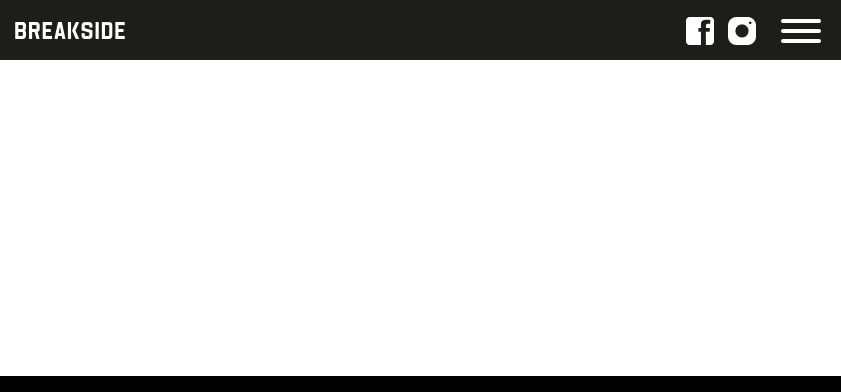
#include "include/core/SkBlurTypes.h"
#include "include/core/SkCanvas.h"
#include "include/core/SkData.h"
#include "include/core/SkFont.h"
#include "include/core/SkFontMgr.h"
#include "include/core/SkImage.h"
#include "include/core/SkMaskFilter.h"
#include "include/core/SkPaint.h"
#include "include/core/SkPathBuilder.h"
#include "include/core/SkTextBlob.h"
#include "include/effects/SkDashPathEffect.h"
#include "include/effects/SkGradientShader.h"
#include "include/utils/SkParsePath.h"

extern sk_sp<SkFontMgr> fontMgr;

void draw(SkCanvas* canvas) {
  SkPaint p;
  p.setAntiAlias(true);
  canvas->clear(SK_ColorWHITE);
  p.setColor(SkColorSetRGB(29, 29, 27));
  canvas->drawRect(SkRect::MakeLTRB(0, 0, 841, 60), p);
  canvas->drawImageRect(SkImages::DeferredFromEncodedData(SkData::MakeFromFileName("images/1.png")), SkRect::MakeLTRB(15, 22, 125, 39), SkSamplingOptions());
  canvas->drawImageRect(SkImages::DeferredFromEncodedData(SkData::MakeFromFileName("images/2.png")), SkRect::MakeLTRB(686, 17, 714, 45), SkSamplingOptions());
  canvas->drawImageRect(SkImages::DeferredFromEncodedData(SkData::MakeFromFileName("images/3.png")), SkRect::MakeLTRB(728, 17, 756, 45), SkSamplingOptions());
  p.setColor(SK_ColorWHITE);
  canvas->drawRoundRect(SkRect::MakeLTRB(781, 39, 821, 43), 2, 2, p);
  canvas->drawRoundRect(SkRect::MakeLTRB(781, 19, 821, 23), 2, 2, p);
  canvas->drawRoundRect(SkRect::MakeLTRB(781, 29, 821, 33), 2, 2, p);
  p.setColor(SK_ColorBLACK);
  canvas->drawRect(SkRect::MakeLTRB(0, 376, 841, 392), p);
}
